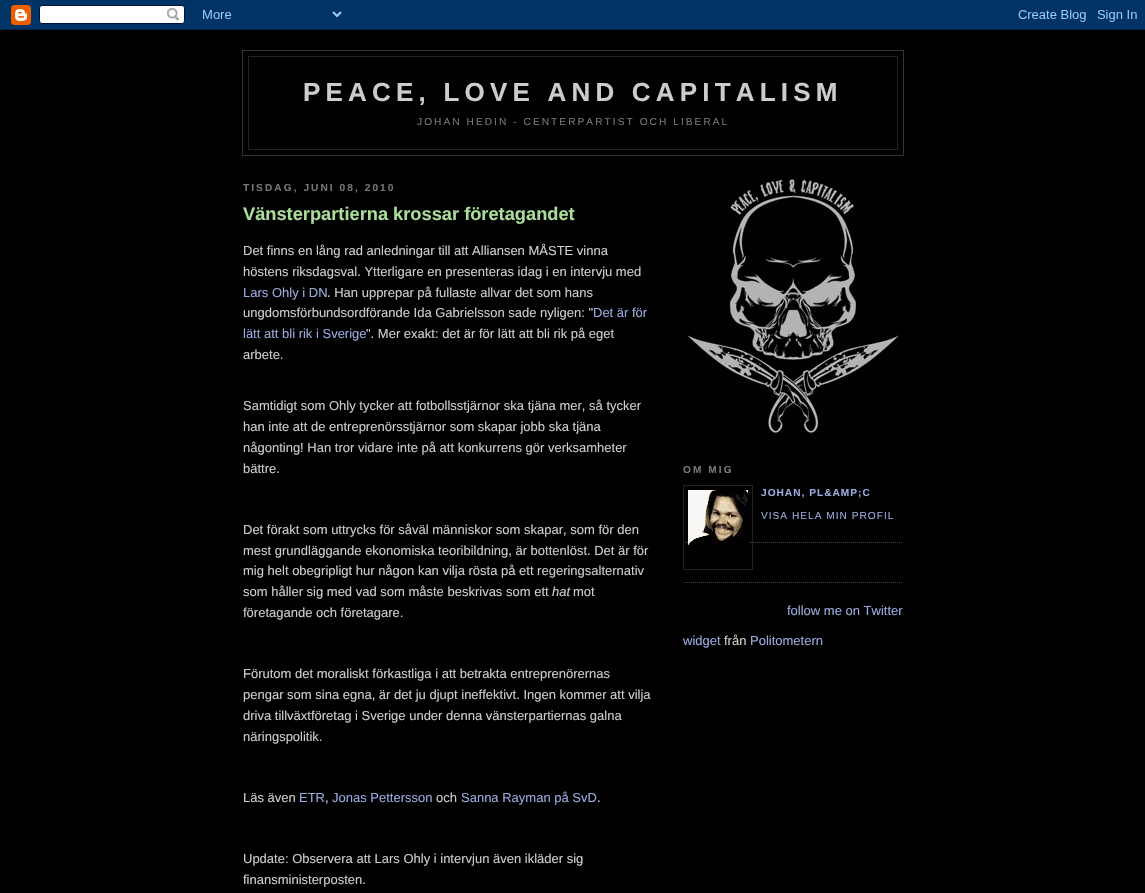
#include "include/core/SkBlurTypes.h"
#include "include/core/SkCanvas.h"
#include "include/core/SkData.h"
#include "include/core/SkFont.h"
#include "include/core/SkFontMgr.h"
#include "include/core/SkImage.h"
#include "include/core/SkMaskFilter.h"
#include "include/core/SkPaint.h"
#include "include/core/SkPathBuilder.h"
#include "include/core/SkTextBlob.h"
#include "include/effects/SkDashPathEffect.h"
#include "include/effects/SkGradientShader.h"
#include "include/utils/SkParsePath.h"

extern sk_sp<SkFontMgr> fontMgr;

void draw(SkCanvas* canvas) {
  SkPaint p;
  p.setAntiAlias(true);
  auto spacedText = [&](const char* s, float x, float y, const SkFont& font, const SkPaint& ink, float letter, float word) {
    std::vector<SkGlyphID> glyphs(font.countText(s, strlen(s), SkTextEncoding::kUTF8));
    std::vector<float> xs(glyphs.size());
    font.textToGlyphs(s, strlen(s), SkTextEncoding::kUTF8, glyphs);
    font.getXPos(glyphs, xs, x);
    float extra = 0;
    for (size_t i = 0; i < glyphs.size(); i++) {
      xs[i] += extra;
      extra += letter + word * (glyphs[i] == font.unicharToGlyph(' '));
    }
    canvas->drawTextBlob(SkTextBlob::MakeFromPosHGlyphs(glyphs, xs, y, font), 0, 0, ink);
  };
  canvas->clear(SK_ColorBLACK);
  canvas->drawImageRect(SkImages::DeferredFromEncodedData(SkData::MakeFromFileName("images/1.png")), SkRect::MakeLTRB(0, 0, 1145, 30), SkSamplingOptions());
  p.setStyle(SkPaint::kStroke_Style);
  p.setStrokeWidth(1);
  p.setColor(SkColorSetRGB(51, 51, 51));
  canvas->drawRect(SkRect::MakeLTRB(242.5f, 50.5f, 903.5f, 155.5f), p);
  p.setStyle(SkPaint::kFill_Style);
  p.setColor(SkColorSetRGB(34, 34, 34));
  canvas->drawRect(SkRect::MakeLTRB(248, 56, 898, 57), p);
  canvas->drawRect(SkRect::MakeLTRB(897, 56, 898, 150), p);
  canvas->drawRect(SkRect::MakeLTRB(248, 56, 249, 115), p);
  canvas->drawRect(SkRect::MakeLTRB(248, 149, 898, 150), p);
  canvas->drawRect(SkRect::MakeLTRB(248, 115, 249, 150), p);
  canvas->drawImageRect(SkImages::DeferredFromEncodedData(SkData::MakeFromFileName("images/2.png")), SkRect::MakeLTRB(687, 179, 899, 433), SkSamplingOptions());
  p.setStyle(SkPaint::kStroke_Style);
  p.setColor(SkColorSetRGB(68, 68, 68));
  p.setPathEffect(SkDashPathEffect::Make({{1, 1}}, 0));
  canvas->drawPath(SkPathBuilder().moveTo(683, 542.5f).lineTo(903, 542.5f).detach(), p);
  p.setPathEffect(nullptr);
  p.setColor(SkColorSetRGB(34, 34, 34));
  canvas->drawRect(SkRect::MakeLTRB(683.5f, 485.5f, 752.5f, 569.5f), p);
  canvas->drawImageRect(SkImages::DeferredFromEncodedData(SkData::MakeFromFileName("images/3.png")), SkRect::MakeLTRB(688, 490, 748, 554), SkSamplingOptions());
  p.setColor(SkColorSetRGB(68, 68, 68));
  p.setPathEffect(SkDashPathEffect::Make({{1, 1}}, 0));
  canvas->drawPath(SkPathBuilder().moveTo(683, 582.5f).lineTo(903, 582.5f).detach(), p);
  p.setPathEffect(nullptr);
  SkFont font1(fontMgr->matchFamilyStyle("Liberation Sans", SkFontStyle::Bold()), 26);
  font1.setSubpixel(true);
  p.setStyle(SkPaint::kFill_Style);
  p.setColor(SkColorSetRGB(204, 204, 204));
  spacedText("PEACE, LOVE AND CAPITALISM", 303, 101, font1, p, 5.2f, 0);
  SkFont font2(fontMgr->matchFamilyStyle("Liberation Sans", SkFontStyle::Normal()), 10.15f);
  font2.setSubpixel(true);
  p.setColor(SkColorSetRGB(119, 119, 119));
  spacedText("JOHAN HEDIN - CENTERPARTIST OCH LIBERAL", 417, 125, font2, p, 2.05f, 0);
  SkFont font3(fontMgr->matchFamilyStyle("Liberation Sans", SkFontStyle::Bold()), 10.15f);
  font3.setSubpixel(true);
  spacedText("TISDAG, JUNI 08, 2010", 243, 191, font3, p, 2.05f, 0);
  SkFont font4(fontMgr->matchFamilyStyle("Liberation Sans", SkFontStyle::Bold()), 18.25f);
  font4.setSubpixel(true);
  p.setColor(SkColorSetRGB(170, 221, 153));
  canvas->drawString("Vänsterpartierna krossar företagandet", 243, 220, font4, p);
  SkFont font5(fontMgr->matchFamilyStyle("Liberation Sans", SkFontStyle::Normal()), 13);
  font5.setSubpixel(true);
  p.setColor(SkColorSetRGB(204, 204, 204));
  canvas->drawString("Det finns en lång rad anledningar till att Alliansen MÅSTE vinna", 243, 255, font5, p);
  canvas->drawString("höstens riksdagsval. Ytterligare en presenteras idag i en intervju med", 243, 276, font5, p);
  p.setColor(SkColorSetRGB(153, 170, 221));
  canvas->drawString("Lars Ohly i DN", 243, 297, font5, p);
  p.setColor(SkColorSetRGB(204, 204, 204));
  canvas->drawString(". Han upprepar på fullaste allvar det som hans", 327, 297, font5, p);
  canvas->drawString("ungdomsförbundsordförande Ida Gabrielsson sade nyligen: \"", 243, 317, font5, p);
  p.setColor(SkColorSetRGB(153, 170, 221));
  canvas->drawString("Det är för", 593, 317, font5, p);
  canvas->drawString("lätt att bli rik i Sverige", 243, 338, font5, p);
  p.setColor(SkColorSetRGB(204, 204, 204));
  canvas->drawString("\". Mer exakt: det är för lätt att bli rik på eget", 366, 338, font5, p);
  canvas->drawString("arbete.", 243, 359, font5, p);
  canvas->drawString("Samtidigt som Ohly tycker att fotbollsstjärnor ska tjäna mer, så tycker", 243, 410, font5, p);
  canvas->drawString("han inte att de entreprenörsstjärnor som skapar jobb ska tjäna", 243, 431, font5, p);
  canvas->drawString("någonting! Han tror vidare inte på att konkurrens gör verksamheter", 243, 452, font5, p);
  canvas->drawString("bättre.", 243, 473, font5, p);
  canvas->drawString("Det förakt som uttrycks för såväl människor som skapar, som för den", 243, 534, font5, p);
  canvas->drawString("mest grundläggande ekonomiska teoribildning, är bottenlöst. Det är för", 243, 555, font5, p);
  canvas->drawString("mig helt obegripligt hur någon kan vilja rösta på ett regeringsalternativ", 243, 575, font5, p);
  canvas->drawString("som håller sig med vad som måste beskrivas som ett", 243, 596, font5, p);
  SkFont font6(fontMgr->matchFamilyStyle("Liberation Sans", SkFontStyle::Italic()), 13);
  font6.setSubpixel(true);
  canvas->drawString("hat", 552, 596, font6, p);
  canvas->drawString("mot", 573, 596, font5, p);
  canvas->drawString("företagande och företagare.", 243, 617, font5, p);
  canvas->drawString("Förutom det moraliskt förkastliga i att betrakta entreprenörernas", 243, 678, font5, p);
  canvas->drawString("pengar som sina egna, är det ju djupt ineffektivt. Ingen kommer att vilja", 243, 699, font5, p);
  canvas->drawString("driva tillväxtföretag i Sverige under denna vänsterpartiernas galna", 243, 720, font5, p);
  canvas->drawString("näringspolitik.", 243, 741, font5, p);
  canvas->drawString("Läs även", 243, 802, font5, p);
  p.setColor(SkColorSetRGB(153, 170, 221));
  canvas->drawString("ETR", 299, 802, font5, p);
  p.setColor(SkColorSetRGB(204, 204, 204));
  canvas->drawString(",", 325, 802, font5, p);
  p.setColor(SkColorSetRGB(153, 170, 221));
  canvas->drawString("Jonas Pettersson", 332, 802, font5, p);
  p.setColor(SkColorSetRGB(204, 204, 204));
  canvas->drawString("och", 436, 802, font5, p);
  p.setColor(SkColorSetRGB(153, 170, 221));
  canvas->drawString("Sanna Rayman på SvD", 461, 802, font5, p);
  p.setColor(SkColorSetRGB(204, 204, 204));
  canvas->drawString(".", 597, 802, font5, p);
  canvas->drawString("Update: Observera att Lars Ohly i intervjun även ikläder sig", 243, 863, font5, p);
  canvas->drawString("finansministerposten.", 243, 884, font5, p);
  p.setColor(SkColorSetRGB(119, 119, 119));
  spacedText("OM MIG", 683, 473, font3, p, 2.05f, 0);
  p.setColor(SkColorSetRGB(153, 170, 221));
  spacedText("JOHAN, PL&AMP;C", 761, 496, font3, p, 1, 0);
  spacedText("VISA HELA MIN PROFIL", 761, 519, font2, p, 1, 0);
  canvas->drawString("follow me on Twitter", 787, 615, font5, p);
  canvas->drawString("widget", 683, 645, font5, p);
  p.setColor(SkColorSetRGB(204, 204, 204));
  canvas->drawString("från", 724, 645, font5, p);
  p.setColor(SkColorSetRGB(153, 170, 221));
  canvas->drawString("Politometern", 750, 645, font5, p);
}
